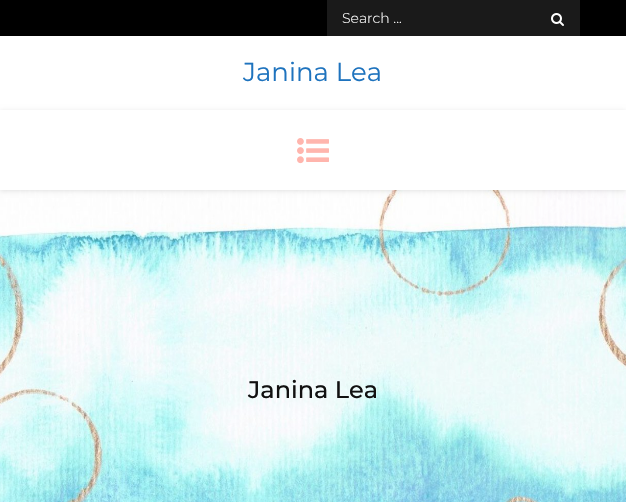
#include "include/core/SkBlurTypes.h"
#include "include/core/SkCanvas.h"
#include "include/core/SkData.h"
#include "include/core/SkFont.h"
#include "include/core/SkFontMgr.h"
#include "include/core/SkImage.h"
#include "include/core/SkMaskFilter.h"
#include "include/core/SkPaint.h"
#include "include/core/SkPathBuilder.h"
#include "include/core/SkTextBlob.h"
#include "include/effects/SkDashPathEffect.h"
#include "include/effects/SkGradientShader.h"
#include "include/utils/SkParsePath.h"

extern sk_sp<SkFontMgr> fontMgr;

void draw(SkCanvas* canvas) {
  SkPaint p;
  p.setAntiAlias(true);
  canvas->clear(SK_ColorBLACK);
  p.setColor(SkColorSetRGB(26, 26, 26));
  canvas->drawRect(SkRect::MakeLTRB(327, 0, 580, 36), p);
  canvas->drawImageRect(SkImages::DeferredFromEncodedData(SkData::MakeFromFileName("images/1.png")), SkRect::MakeLTRB(551, 13, 564, 26), SkSamplingOptions());
  p.setColor(SK_ColorWHITE);
  canvas->drawRect(SkRect::MakeLTRB(0, 36, 626, 190), p);
  canvas->drawImageRect(SkImages::DeferredFromEncodedData(SkData::MakeFromFileName("images/3.png")), SkRect::MakeLTRB(0, 190, 626, 502), SkSamplingOptions());
  canvas->save();
  canvas->clipPath(SkPathBuilder(SkPathFillType::kEvenOdd).moveTo(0, 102).lineTo(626, 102).lineTo(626, 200).lineTo(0, 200).close().moveTo(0, 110).lineTo(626, 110).lineTo(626, 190).lineTo(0, 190).close().detach(), true);
  p.setColor(SkColorSetARGB(28, 0, 0, 0));
  p.setMaskFilter(SkMaskFilter::MakeBlur(kNormal_SkBlurStyle, 2.5f));
  canvas->drawRect(SkRect::MakeLTRB(0, 111, 626, 191), p);
  p.setMaskFilter(nullptr);
  canvas->restore();
  canvas->drawImageRect(SkImages::DeferredFromEncodedData(SkData::MakeFromFileName("images/2.png")), SkRect::MakeLTRB(297, 138, 329, 164), SkSamplingOptions());
  SkFont font1(fontMgr->matchFamilyStyle("Montserrat", SkFontStyle(300, SkFontStyle::kNormal_Width, SkFontStyle::kUpright_Slant)), 14);
  font1.setSubpixel(true);
  p.setColor(SK_ColorWHITE);
  canvas->drawString("Search ...", 342, 23, font1, p);
  SkFont font2(fontMgr->matchFamilyStyle("Montserrat", SkFontStyle::Normal()), 26);
  font2.setSubpixel(true);
  p.setColor(SkColorSetRGB(30, 115, 190));
  canvas->drawString("Janina Lea", 243, 81, font2, p);
  SkFont font3(fontMgr->matchFamilyStyle("Montserrat", SkFontStyle(500, SkFontStyle::kNormal_Width, SkFontStyle::kUpright_Slant)), 24);
  font3.setSubpixel(true);
  p.setColor(SkColorSetRGB(17, 17, 17));
  canvas->drawString("Janina Lea", 248, 398, font3, p);
}
